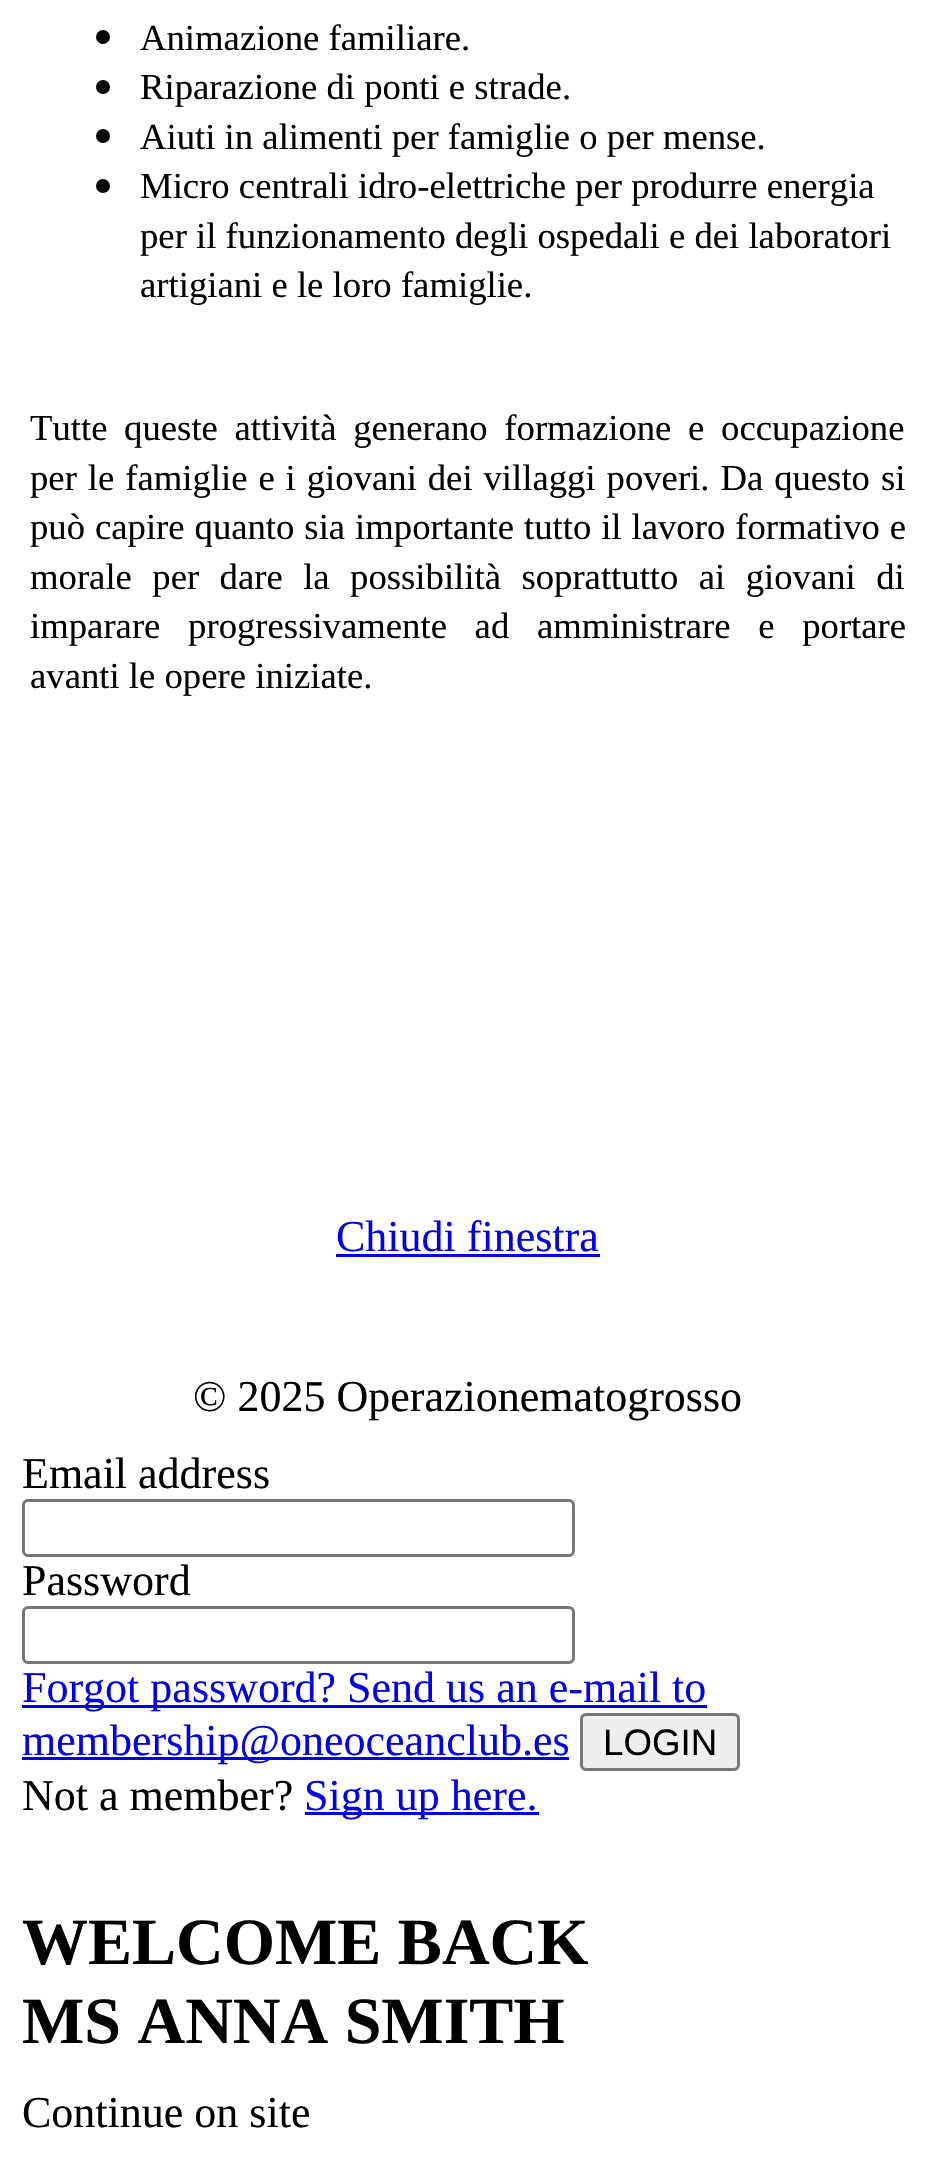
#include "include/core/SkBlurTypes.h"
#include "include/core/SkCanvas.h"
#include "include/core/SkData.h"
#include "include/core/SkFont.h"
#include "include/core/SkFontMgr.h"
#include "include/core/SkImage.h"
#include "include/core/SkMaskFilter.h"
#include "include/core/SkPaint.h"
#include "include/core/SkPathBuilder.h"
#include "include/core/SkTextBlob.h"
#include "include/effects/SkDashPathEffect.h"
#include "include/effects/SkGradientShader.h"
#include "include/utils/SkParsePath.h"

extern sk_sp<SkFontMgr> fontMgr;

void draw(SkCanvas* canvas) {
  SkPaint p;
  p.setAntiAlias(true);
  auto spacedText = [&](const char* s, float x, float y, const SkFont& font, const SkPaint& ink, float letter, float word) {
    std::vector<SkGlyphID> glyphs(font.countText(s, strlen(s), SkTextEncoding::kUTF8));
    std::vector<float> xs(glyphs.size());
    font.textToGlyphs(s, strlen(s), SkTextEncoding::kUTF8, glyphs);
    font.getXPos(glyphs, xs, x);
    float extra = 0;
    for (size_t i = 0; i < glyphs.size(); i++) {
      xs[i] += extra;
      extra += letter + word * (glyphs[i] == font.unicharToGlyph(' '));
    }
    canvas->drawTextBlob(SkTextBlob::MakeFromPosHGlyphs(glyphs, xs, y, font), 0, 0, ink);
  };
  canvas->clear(SK_ColorWHITE);
  p.setColor(SK_ColorBLACK);
  canvas->drawCircle(103, 37, 7, p);
  canvas->drawCircle(103, 87, 7, p);
  canvas->drawCircle(103, 136, 7, p);
  canvas->drawCircle(103, 186, 7, p);
  p.setColor(SkColorSetRGB(0, 0, 238));
  canvas->drawRect(SkRect::MakeLTRB(336, 1254, 600, 1257), p);
  p.setStyle(SkPaint::kStroke_Style);
  p.setStrokeWidth(3);
  p.setColor(SkColorSetRGB(118, 118, 118));
  canvas->drawRoundRect(SkRect::MakeLTRB(23.5f, 1500.5f, 573.5f, 1555.5f), 4.5f, 4.5f, p);
  canvas->drawRoundRect(SkRect::MakeLTRB(23.5f, 1607.5f, 573.5f, 1662.5f), 4.5f, 4.5f, p);
  p.setStyle(SkPaint::kFill_Style);
  p.setColor(SkColorSetRGB(0, 0, 238));
  canvas->drawRect(SkRect::MakeLTRB(22, 1705, 707, 1708), p);
  canvas->drawRect(SkRect::MakeLTRB(22, 1757, 569, 1760), p);
  p.setColor(SkColorSetRGB(239, 239, 239));
  canvas->drawRoundRect(SkRect::MakeLTRB(581.5f, 1714.5f, 738.5f, 1769.5f), 4.5f, 4.5f, p);
  p.setStyle(SkPaint::kStroke_Style);
  p.setColor(SkColorSetRGB(118, 118, 118));
  canvas->drawRoundRect(SkRect::MakeLTRB(581.5f, 1714.5f, 738.5f, 1769.5f), 4.5f, 4.5f, p);
  p.setStyle(SkPaint::kFill_Style);
  p.setColor(SkColorSetRGB(0, 0, 238));
  canvas->drawRect(SkRect::MakeLTRB(305, 1812, 539, 1815), p);
  SkFont font1(fontMgr->matchFamilyStyle("Liberation Serif", SkFontStyle::Normal()), 36.7f);
  font1.setSubpixel(true);
  p.setColor(SK_ColorBLACK);
  canvas->drawString("Animazione familiare.", 140, 50, font1, p);
  canvas->drawString("Riparazione di ponti e strade.", 140, 99, font1, p);
  canvas->drawString("Aiuti in alimenti per famiglie o per mense.", 140, 149, font1, p);
  canvas->drawString("Micro centrali idro-elettriche per produrre energia", 140, 198, font1, p);
  canvas->drawString("per il funzionamento degli ospedali e dei laboratori", 140, 248, font1, p);
  canvas->drawString("artigiani e le loro famiglie.", 140, 297, font1, p);
  spacedText("Tutte queste attività generano formazione e occupazione", 30, 440, font1, p, 0, 7.5f);
  spacedText("per le famiglie e i giovani dei villaggi poveri. Da questo si", 30, 490, font1, p, 0, 1.75f);
  spacedText("può capire quanto sia importante tutto il lavoro formativo e", 30, 539, font1, p, 0, 0.75f);
  spacedText("morale per dare la possibilità soprattutto ai giovani di", 30, 589, font1, p, 0, 11.25f);
  spacedText("imparare progressivamente ad amministrare e portare", 30, 638, font1, p, 0, 18.5f);
  canvas->drawString("avanti le opere iniziate.", 30, 688, font1, p);
  SkFont font2(fontMgr->matchFamilyStyle("Liberation Serif", SkFontStyle::Normal()), 44);
  font2.setSubpixel(true);
  p.setColor(SkColorSetRGB(0, 0, 238));
  canvas->drawString("Chiudi finestra", 336, 1251, font2, p);
  p.setColor(SK_ColorBLACK);
  canvas->drawString("© 2025 Operazionematogrosso", 193, 1411, font2, p);
  canvas->drawString("Email address", 22, 1488, font2, p);
  canvas->drawString("Password", 22, 1595, font2, p);
  p.setColor(SkColorSetRGB(0, 0, 238));
  canvas->drawString("Forgot password? Send us an e-mail to", 22, 1702, font2, p);
  canvas->drawString("membership@oneoceanclub.es", 22, 1755, font2, p);
  SkFont font3(fontMgr->matchFamilyStyle("Liberation Sans", SkFontStyle::Normal()), 36.7f);
  font3.setSubpixel(true);
  p.setColor(SK_ColorBLACK);
  canvas->drawString("LOGIN", 603, 1755, font3, p);
  canvas->drawString("Not a member?", 22, 1810, font2, p);
  p.setColor(SkColorSetRGB(0, 0, 238));
  canvas->drawString("Sign up here.", 304, 1810, font2, p);
  SkFont font4(fontMgr->matchFamilyStyle("Liberation Serif", SkFontStyle::Bold()), 66);
  font4.setSubpixel(true);
  p.setColor(SK_ColorBLACK);
  canvas->drawString("WELCOME BACK", 22, 1964, font4, p);
  canvas->drawString("MS ANNA SMITH", 22, 2043, font4, p);
  canvas->drawString("Continue on site", 22, 2127, font2, p);
}
